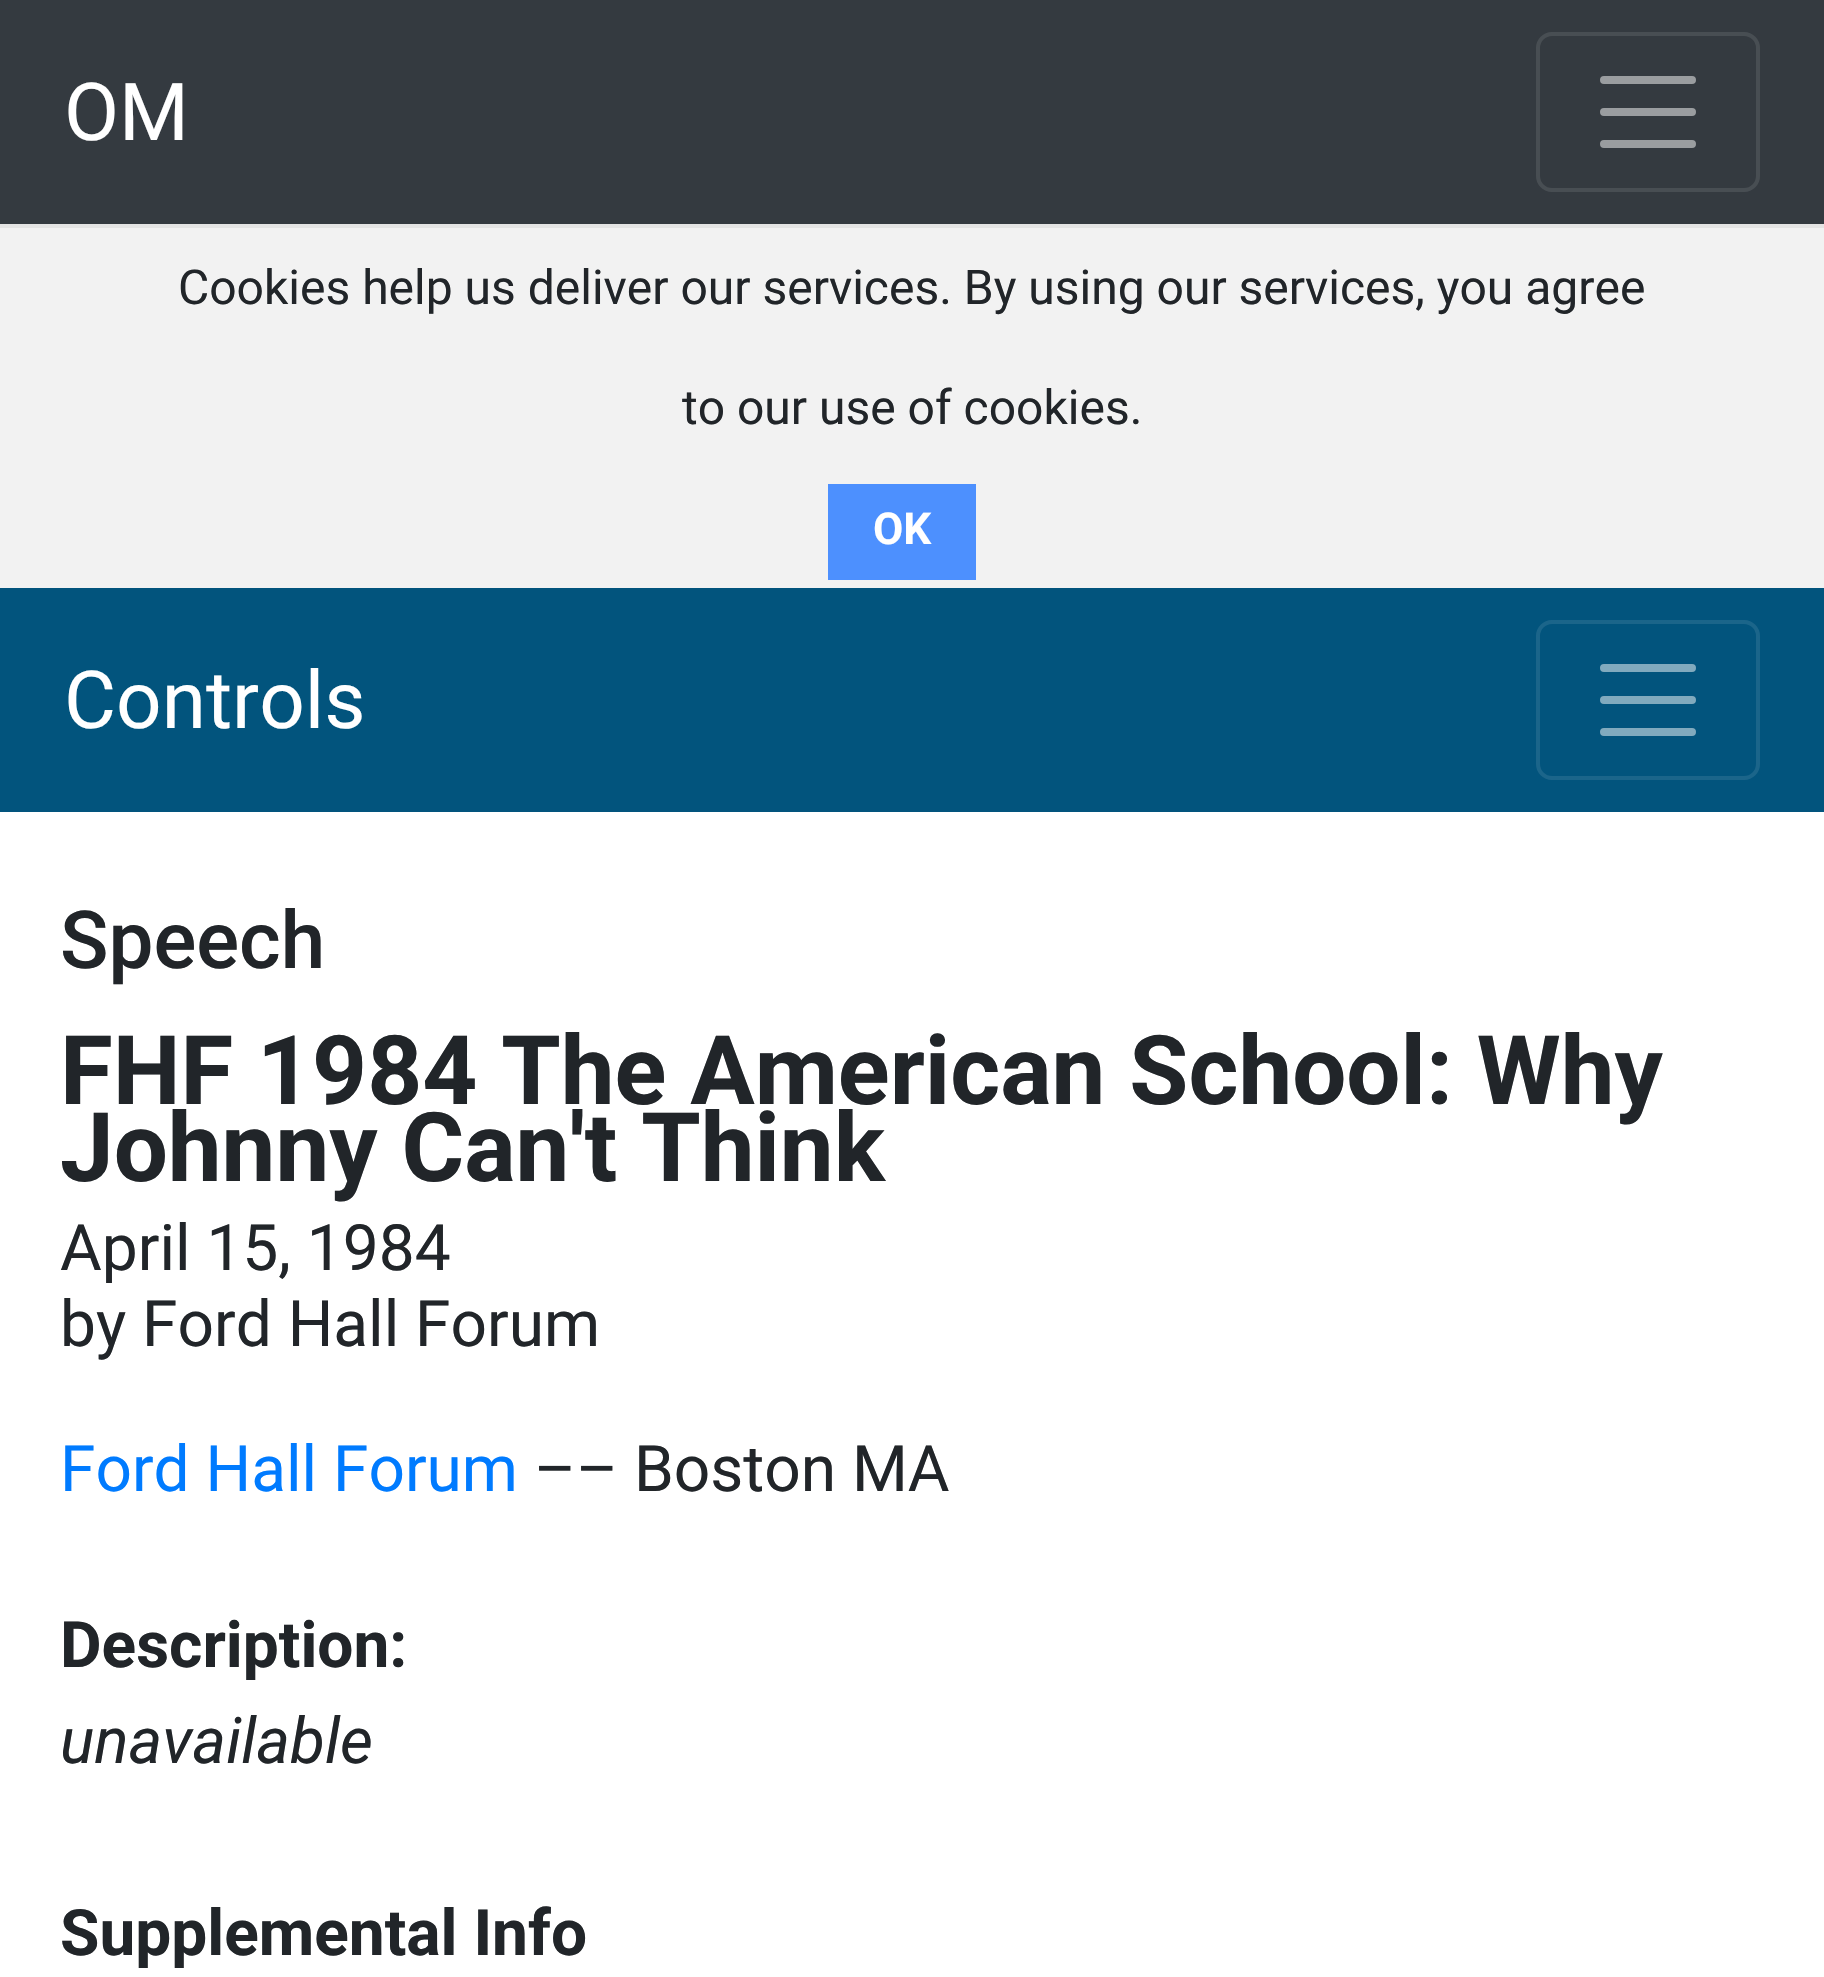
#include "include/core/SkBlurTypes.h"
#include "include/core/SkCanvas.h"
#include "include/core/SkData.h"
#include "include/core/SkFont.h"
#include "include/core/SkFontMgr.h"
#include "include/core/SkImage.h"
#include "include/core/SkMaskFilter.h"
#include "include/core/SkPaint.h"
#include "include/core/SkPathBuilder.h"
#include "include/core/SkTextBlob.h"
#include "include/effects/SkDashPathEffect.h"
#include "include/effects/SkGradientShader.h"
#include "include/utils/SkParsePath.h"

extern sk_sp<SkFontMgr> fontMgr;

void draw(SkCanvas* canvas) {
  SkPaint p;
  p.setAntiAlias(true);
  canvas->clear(SK_ColorWHITE);
  p.setColor(SkColorSetRGB(52, 58, 64));
  canvas->drawRect(SkRect::MakeLTRB(0, 0, 1824, 224), p);
  p.setStyle(SkPaint::kStroke_Style);
  p.setStrokeWidth(4);
  p.setColor(SkColorSetRGB(72, 78, 83));
  canvas->drawRoundRect(SkRect::MakeLTRB(1538, 34, 1758, 190), 14, 14, p);
  p.setStrokeWidth(8);
  p.setStrokeCap(SkPaint::kRound_Cap);
  p.setColor(SkColorSetRGB(154, 157, 160));
  canvas->drawPath(SkPathBuilder().moveTo(1604, 80).lineTo(1692, 80).moveTo(1604, 112).lineTo(1692, 112).moveTo(1604, 144).lineTo(1692, 144).detach(), p);
  p.setStyle(SkPaint::kFill_Style);
  p.setColor(SkColorSetRGB(242, 242, 242));
  canvas->drawRect(SkRect::MakeLTRB(0, 228, 1824, 588), p);
  p.setColor(SkColorSetRGB(228, 228, 228));
  canvas->drawRect(SkRect::MakeLTRB(0, 224, 1824, 228), p);
  p.setColor(SkColorSetRGB(77, 144, 254));
  canvas->drawRect(SkRect::MakeLTRB(828, 484, 976, 580), p);
  p.setColor(SkColorSetRGB(2, 84, 125));
  canvas->drawRect(SkRect::MakeLTRB(0, 588, 1824, 812), p);
  p.setStyle(SkPaint::kStroke_Style);
  p.setStrokeWidth(4);
  p.setStrokeCap(SkPaint::kButt_Cap);
  p.setColor(SkColorSetRGB(27, 101, 138));
  canvas->drawRoundRect(SkRect::MakeLTRB(1538, 622, 1758, 778), 14, 14, p);
  p.setStrokeWidth(8);
  p.setStrokeCap(SkPaint::kRound_Cap);
  p.setColor(SkColorSetRGB(129, 170, 190));
  canvas->drawPath(SkPathBuilder().moveTo(1604, 668).lineTo(1692, 668).moveTo(1604, 700).lineTo(1692, 700).moveTo(1604, 732).lineTo(1692, 732).detach(), p);
  SkFont font1(fontMgr->matchFamilyStyle("Roboto", SkFontStyle::Normal()), 80);
  font1.setSubpixel(true);
  p.setStyle(SkPaint::kFill_Style);
  p.setColor(SK_ColorWHITE);
  canvas->drawString("OM", 64, 140, font1, p);
  SkFont font2(fontMgr->matchFamilyStyle("Roboto", SkFontStyle::Normal()), 48);
  font2.setSubpixel(true);
  p.setColor(SkColorSetRGB(33, 37, 41));
  canvas->drawString("Cookies help us deliver our services. By using our services, you agree", 178, 304, font2, p);
  canvas->drawString("to our use of cookies.", 682, 424, font2, p);
  SkFont font3(fontMgr->matchFamilyStyle("Roboto", SkFontStyle::Bold()), 44);
  font3.setSubpixel(true);
  p.setColor(SK_ColorWHITE);
  canvas->drawString("OK", 873, 544, font3, p);
  canvas->drawString("Controls", 64, 728, font1, p);
  SkFont font4(fontMgr->matchFamilyStyle("Roboto", SkFontStyle(500, SkFontStyle::kNormal_Width, SkFontStyle::kUpright_Slant)), 80);
  font4.setSubpixel(true);
  p.setColor(SkColorSetRGB(33, 37, 41));
  canvas->drawString("Speech", 60, 968, font4, p);
  SkFont font5(fontMgr->matchFamilyStyle("Roboto", SkFontStyle::Bold()), 96);
  font5.setSubpixel(true);
  canvas->drawString("FHF 1984 The American School: Why", 60, 1104, font5, p);
  canvas->drawString("Johnny Can't Think", 60, 1181, font5, p);
  SkFont font6(fontMgr->matchFamilyStyle("Roboto", SkFontStyle::Normal()), 64);
  font6.setSubpixel(true);
  canvas->drawString("April 15, 1984", 60, 1270, font6, p);
  canvas->drawString("by Ford Hall Forum", 60, 1346, font6, p);
  p.setColor(SkColorSetRGB(0, 123, 255));
  canvas->drawString("Ford Hall Forum", 60, 1491, font6, p);
  p.setColor(SkColorSetRGB(33, 37, 41));
  canvas->drawString("–– Boston MA", 534, 1491, font6, p);
  SkFont font7(fontMgr->matchFamilyStyle("Roboto", SkFontStyle::Bold()), 64);
  font7.setSubpixel(true);
  canvas->drawString("Description:", 60, 1667, font7, p);
  SkFont font8(fontMgr->matchFamilyStyle("Roboto", SkFontStyle::Italic()), 64);
  font8.setSubpixel(true);
  canvas->drawString("unavailable", 60, 1763, font8, p);
  canvas->drawString("Supplemental Info", 60, 1955, font7, p);
}
